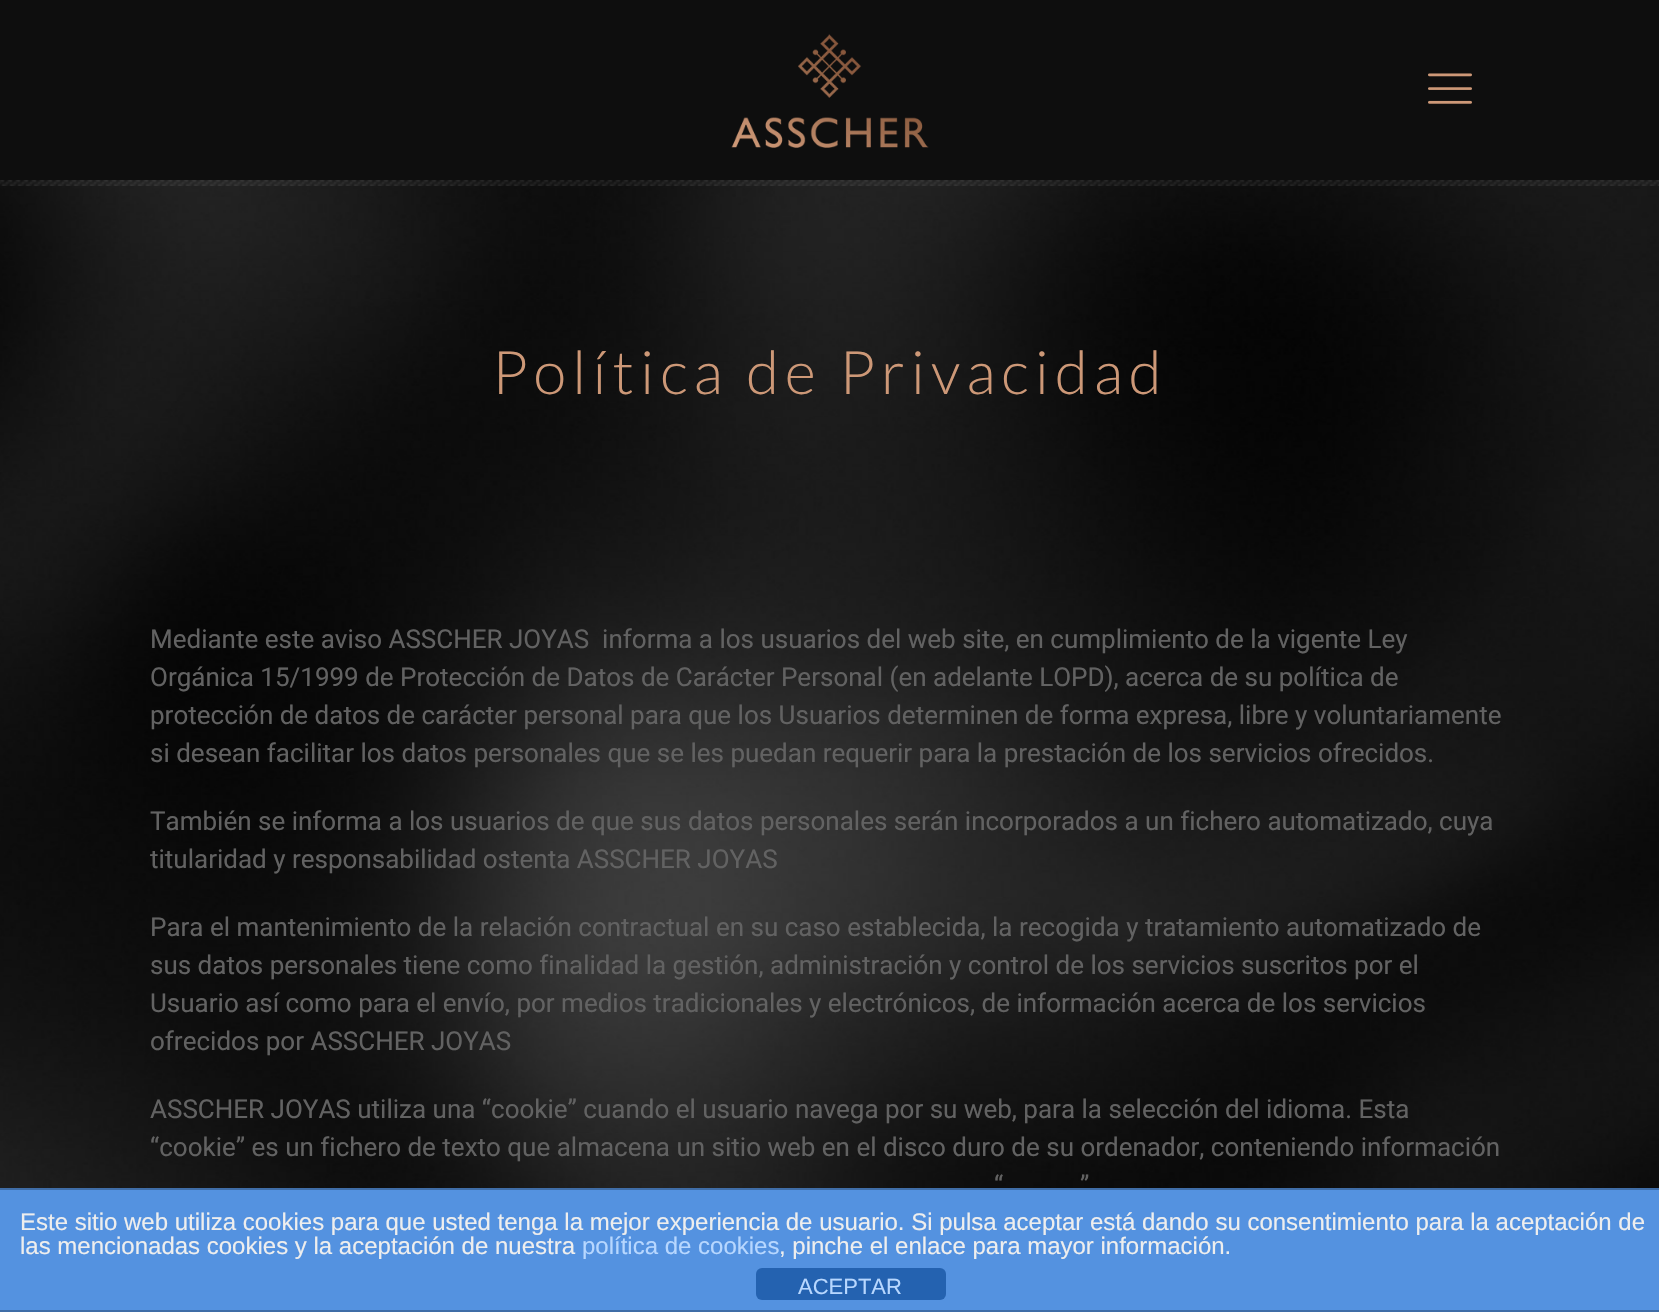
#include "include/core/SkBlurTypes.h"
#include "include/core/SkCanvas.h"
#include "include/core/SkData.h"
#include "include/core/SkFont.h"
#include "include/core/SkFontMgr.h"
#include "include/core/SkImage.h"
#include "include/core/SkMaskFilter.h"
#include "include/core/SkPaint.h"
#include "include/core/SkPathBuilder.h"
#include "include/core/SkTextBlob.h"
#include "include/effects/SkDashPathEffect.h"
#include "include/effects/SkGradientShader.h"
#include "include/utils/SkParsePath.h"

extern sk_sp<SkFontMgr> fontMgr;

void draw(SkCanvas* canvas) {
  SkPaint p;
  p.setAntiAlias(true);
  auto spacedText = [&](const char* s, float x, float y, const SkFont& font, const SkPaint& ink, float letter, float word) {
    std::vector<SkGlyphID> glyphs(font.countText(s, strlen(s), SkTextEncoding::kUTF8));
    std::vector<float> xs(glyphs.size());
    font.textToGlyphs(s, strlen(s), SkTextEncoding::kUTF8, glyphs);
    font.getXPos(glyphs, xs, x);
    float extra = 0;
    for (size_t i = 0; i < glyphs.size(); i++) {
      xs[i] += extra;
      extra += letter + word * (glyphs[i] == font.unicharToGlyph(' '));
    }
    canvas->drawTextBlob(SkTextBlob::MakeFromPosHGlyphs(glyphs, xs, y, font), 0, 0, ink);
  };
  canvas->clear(SK_ColorWHITE);
  canvas->drawImageRect(SkImages::DeferredFromEncodedData(SkData::MakeFromFileName("images/1.png")), SkRect::MakeLTRB(0, 180, 1659, 1188), SkSamplingOptions());
  p.setColor(SkColorSetRGB(14, 14, 14));
  canvas->drawRect(SkRect::MakeLTRB(0, 0, 1659, 180), p);
  canvas->drawImageRect(SkImages::DeferredFromEncodedData(SkData::MakeFromFileName("images/2.png")), SkRect::MakeLTRB(731, 34, 929, 148), SkSamplingOptions());
  canvas->drawImageRect(SkImages::DeferredFromEncodedData(SkData::MakeFromFileName("images/3.png")), SkRect::MakeLTRB(1428, 73, 1472, 104), SkSamplingOptions());
  canvas->drawImageRect(SkImages::DeferredFromEncodedData(SkData::MakeFromFileName("images/4.png")), SkRect::MakeLTRB(0, 180, 1659, 186), SkSamplingOptions());
  p.setColor(SkColorSetRGB(84, 146, 224));
  canvas->drawRect(SkRect::MakeLTRB(0, 1190, 1659, 1310), p);
  p.setColor(SkColorSetRGB(63, 109, 167));
  canvas->drawRect(SkRect::MakeLTRB(0, 1188, 1659, 1190), p);
  canvas->drawRect(SkRect::MakeLTRB(0, 1310, 1659, 1312), p);
  p.setColor(SkColorSetRGB(36, 98, 176));
  canvas->drawRoundRect(SkRect::MakeLTRB(756, 1268, 946, 1300), 6, 6, p);
  SkFont font1(fontMgr->matchFamilyStyle("Lato", SkFontStyle(300, SkFontStyle::kNormal_Width, SkFontStyle::kUpright_Slant)), 60);
  font1.setSubpixel(true);
  p.setColor(SkColorSetRGB(205, 152, 119));
  spacedText("Política de Privacidad", 492, 394, font1, p, 6, 0);
  SkFont font2(fontMgr->matchFamilyStyle("Roboto", SkFontStyle::Normal()), 26);
  font2.setSubpixel(true);
  p.setColor(SkColorSetRGB(98, 98, 98));
  canvas->drawString("Mediante este aviso ASSCHER JOYAS  informa a los usuarios del web site, en cumplimiento de la vigente Ley", 150, 648, font2, p);
  canvas->drawString("Orgánica 15/1999 de Protección de Datos de Carácter Personal (en adelante LOPD), acerca de su política de", 150, 686, font2, p);
  canvas->drawString("protección de datos de carácter personal para que los Usuarios determinen de forma expresa, libre y voluntariamente", 150, 724, font2, p);
  canvas->drawString("si desean facilitar los datos personales que se les puedan requerir para la prestación de los servicios ofrecidos.", 150, 762, font2, p);
  canvas->drawString("También se informa a los usuarios de que sus datos personales serán incorporados a un fichero automatizado, cuya", 150, 830, font2, p);
  canvas->drawString("titularidad y responsabilidad ostenta ASSCHER JOYAS", 150, 868, font2, p);
  canvas->drawString("Para el mantenimiento de la relación contractual en su caso establecida, la recogida y tratamiento automatizado de", 150, 936, font2, p);
  canvas->drawString("sus datos personales tiene como finalidad la gestión, administración y control de los servicios suscritos por el", 150, 974, font2, p);
  canvas->drawString("Usuario así como para el envío, por medios tradicionales y electrónicos, de información acerca de los servicios", 150, 1012, font2, p);
  canvas->drawString("ofrecidos por ASSCHER JOYAS", 150, 1050, font2, p);
  canvas->drawString("ASSCHER JOYAS utiliza una “cookie” cuando el usuario navega por su web, para la selección del idioma. Esta", 150, 1118, font2, p);
  canvas->drawString("“cookie” es un fichero de texto que almacena un sitio web en el disco duro de su ordenador, conteniendo información", 150, 1156, font2, p);
  canvas->drawString("“", 994, 1194, font2, p);
  canvas->drawString("”", 1080, 1194, font2, p);
  SkFont font3(fontMgr->matchFamilyStyle("Liberation Sans", SkFontStyle::Normal()), 24);
  font3.setSubpixel(true);
  p.setColor(SkColorSetRGB(238, 238, 238));
  canvas->drawString("Este sitio web utiliza cookies para que usted tenga la mejor experiencia de usuario. Si pulsa aceptar está dando su consentimiento para la aceptación de", 20, 1230, font3, p);
  canvas->drawString("las mencionadas cookies y la aceptación de nuestra", 20, 1254, font3, p);
  p.setColor(SkColorSetRGB(183, 215, 255));
  canvas->drawString("política de cookies", 582, 1254, font3, p);
  p.setColor(SkColorSetRGB(238, 238, 238));
  canvas->drawString(", pinche el enlace para mayor información.", 779, 1254, font3, p);
  SkFont font4(fontMgr->matchFamilyStyle("Liberation Sans", SkFontStyle::Normal()), 22);
  font4.setSubpixel(true);
  p.setColor(SkColorSetRGB(183, 215, 255));
  canvas->drawString("ACEPTAR", 798, 1294, font4, p);
}
